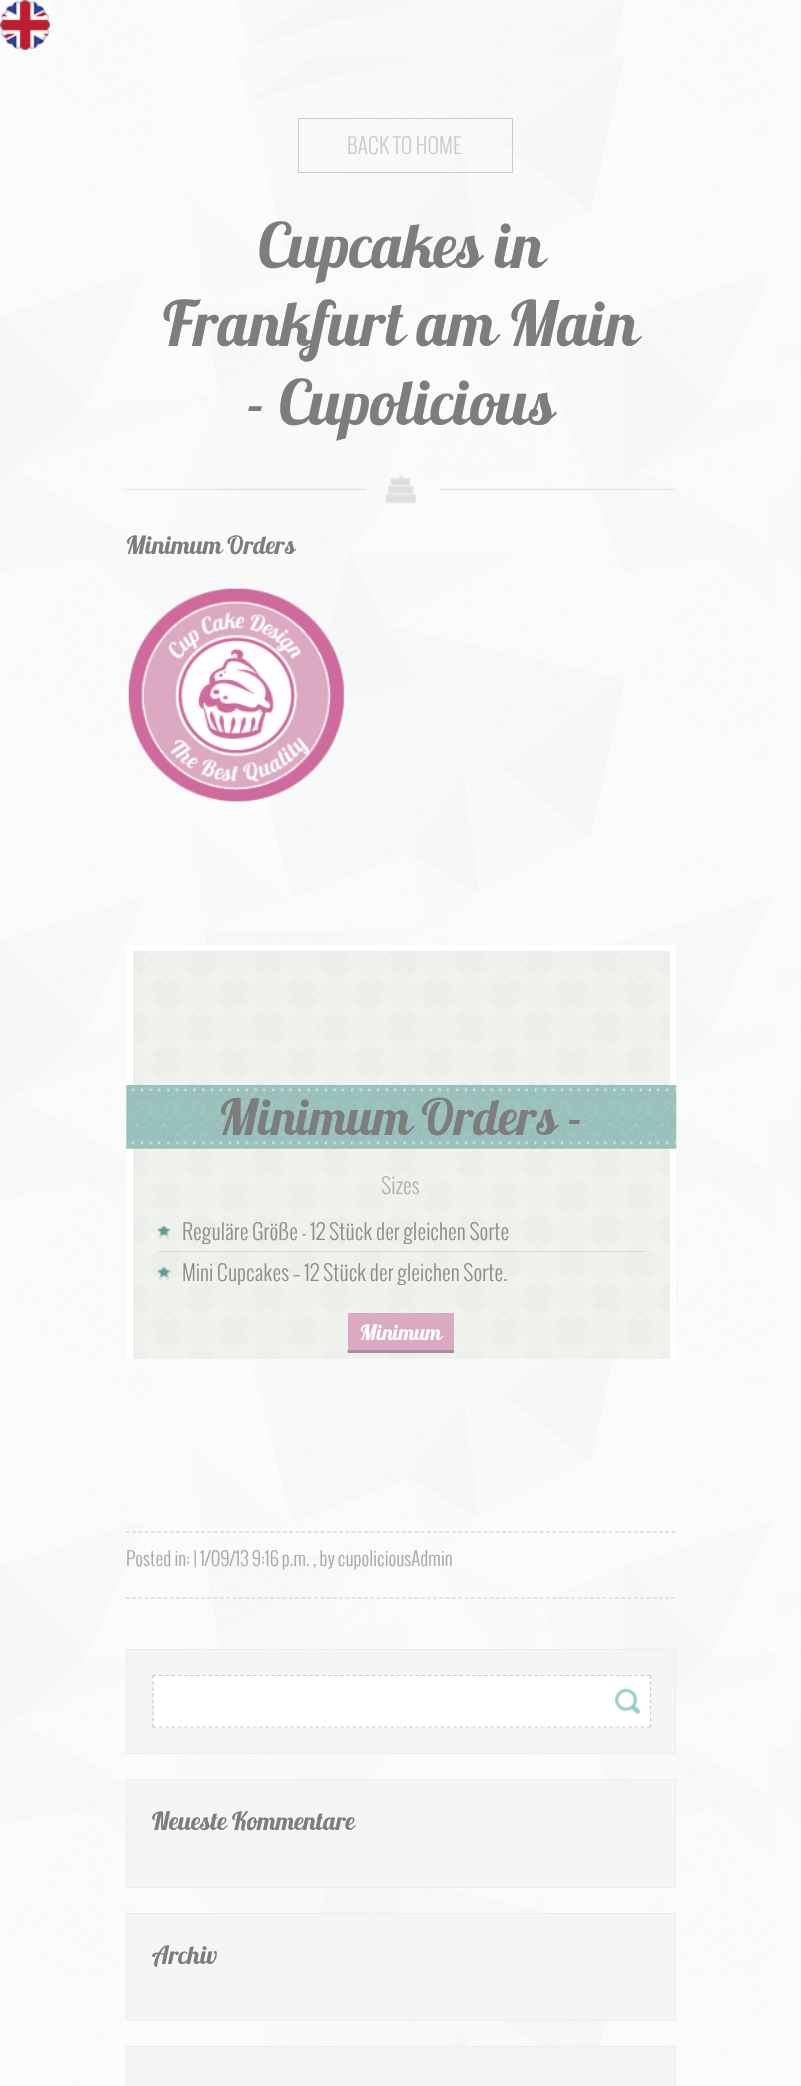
#include "include/core/SkBlurTypes.h"
#include "include/core/SkCanvas.h"
#include "include/core/SkData.h"
#include "include/core/SkFont.h"
#include "include/core/SkFontMgr.h"
#include "include/core/SkImage.h"
#include "include/core/SkMaskFilter.h"
#include "include/core/SkPaint.h"
#include "include/core/SkPathBuilder.h"
#include "include/core/SkTextBlob.h"
#include "include/effects/SkDashPathEffect.h"
#include "include/effects/SkGradientShader.h"
#include "include/utils/SkParsePath.h"

extern sk_sp<SkFontMgr> fontMgr;

void draw(SkCanvas* canvas) {
  SkPaint p;
  p.setAntiAlias(true);
  canvas->clear(SK_ColorWHITE);
  canvas->drawImageRect(SkImages::DeferredFromEncodedData(SkData::MakeFromFileName("images/1.png")), SkRect::MakeLTRB(0, 0, 801, 2086), SkSamplingOptions());
  canvas->drawImageRect(SkImages::DeferredFromEncodedData(SkData::MakeFromFileName("images/2.png")), SkRect::MakeLTRB(0, 0, 50, 50), SkSamplingOptions());
  canvas->drawImageRect(SkImages::DeferredFromEncodedData(SkData::MakeFromFileName("images/3.png")), SkRect::MakeLTRB(0, 56, 774, 2086), SkSamplingOptions());
  canvas->drawImageRect(SkImages::DeferredFromEncodedData(SkData::MakeFromFileName("images/4.png")), SkRect::MakeLTRB(126, 475, 677, 504), SkSamplingOptions());
  p.setStyle(SkPaint::kStroke_Style);
  p.setStrokeWidth(1);
  p.setColor(SkColorSetRGB(204, 204, 204));
  canvas->drawRect(SkRect::MakeLTRB(298.5f, 118.5f, 512.5f, 172.5f), p);
  canvas->drawImageRect(SkImages::DeferredFromEncodedData(SkData::MakeFromFileName("images/5.png")), SkRect::MakeLTRB(128, 588, 344, 802), SkSamplingOptions());
  canvas->drawImageRect(SkImages::DeferredFromEncodedData(SkData::MakeFromFileName("images/7.png")), SkRect::MakeLTRB(133, 945, 677, 1359), SkSamplingOptions());
  p.setStyle(SkPaint::kFill_Style);
  p.setColor(SK_ColorWHITE);
  canvas->drawRect(SkRect::MakeLTRB(126, 945, 676, 951), p);
  canvas->drawRect(SkRect::MakeLTRB(670, 945, 676, 1359), p);
  canvas->drawRect(SkRect::MakeLTRB(126, 945, 133, 1359), p);
  canvas->drawImageRect(SkImages::DeferredFromEncodedData(SkData::MakeFromFileName("images/6.png")), SkRect::MakeLTRB(126, 1085, 677, 1149), SkSamplingOptions());
  canvas->drawImageRect(SkImages::DeferredFromEncodedData(SkData::MakeFromFileName("images/8.png")), SkRect::MakeLTRB(157, 1226, 172, 1239), SkSamplingOptions());
  p.setColor(SkColorSetRGB(212, 215, 211));
  canvas->drawRect(SkRect::MakeLTRB(158, 1251, 645, 1252), p);
  canvas->drawImageRect(SkImages::DeferredFromEncodedData(SkData::MakeFromFileName("images/9.png")), SkRect::MakeLTRB(157, 1267, 172, 1280), SkSamplingOptions());
  p.setColor(SkColorSetRGB(218, 170, 194));
  canvas->drawRect(SkRect::MakeLTRB(348, 1313, 454, 1353), p);
  p.setColor(SkColorSetARGB(48, 0, 0, 0));
  canvas->drawRect(SkRect::MakeLTRB(347, 1350, 454, 1353), p);
  p.setStyle(SkPaint::kStroke_Style);
  p.setStrokeWidth(1.2f);
  p.setColor(SkColorSetRGB(204, 204, 204));
  p.setPathEffect(SkDashPathEffect::Make({{3.75f, 2.52f}}, 0));
  canvas->drawPath(SkPathBuilder().moveTo(126, 1532).lineTo(676, 1532).detach(), p);
  p.setPathEffect(nullptr);
  p.setPathEffect(SkDashPathEffect::Make({{3.75f, 2.52f}}, 0));
  canvas->drawPath(SkPathBuilder().moveTo(126, 1598).lineTo(676, 1598).detach(), p);
  p.setPathEffect(nullptr);
  p.setStyle(SkPaint::kFill_Style);
  p.setColor(SkColorSetRGB(245, 245, 245));
  canvas->drawRect(SkRect::MakeLTRB(126.5f, 1649.5f, 675.5f, 1753.5f), p);
  p.setStyle(SkPaint::kStroke_Style);
  p.setStrokeWidth(1);
  p.setColor(SkColorSetRGB(237, 237, 237));
  canvas->drawRect(SkRect::MakeLTRB(126.5f, 1649.5f, 675.5f, 1753.5f), p);
  p.setStyle(SkPaint::kFill_Style);
  p.setColor(SK_ColorWHITE);
  canvas->drawRect(SkRect::MakeLTRB(153, 1675, 651, 1728), p);
  canvas->drawImageRect(SkImages::DeferredFromEncodedData(SkData::MakeFromFileName("images/10.png")), SkRect::MakeLTRB(614, 1688, 641, 1714), SkSamplingOptions());
  p.setStyle(SkPaint::kStroke_Style);
  p.setStrokeWidth(1.2f);
  p.setColor(SkColorSetRGB(204, 204, 204));
  p.setPathEffect(SkDashPathEffect::Make({{3.75f, 2.51f}}, 0));
  canvas->drawPath(SkPathBuilder().moveTo(152.5f, 1675.5f).lineTo(651, 1675.5f).detach(), p);
  p.setPathEffect(nullptr);
  p.setPathEffect(SkDashPathEffect::Make({{3.75f, 2.35f}}, 0));
  canvas->drawPath(SkPathBuilder().moveTo(650.5f, 1675).lineTo(650.5f, 1727.5f).detach(), p);
  p.setPathEffect(nullptr);
  p.setPathEffect(SkDashPathEffect::Make({{3.75f, 2.51f}}, 0));
  canvas->drawPath(SkPathBuilder().moveTo(152.5f, 1727).lineTo(651, 1727).detach(), p);
  p.setPathEffect(nullptr);
  p.setPathEffect(SkDashPathEffect::Make({{3.75f, 2.35f}}, 0));
  canvas->drawPath(SkPathBuilder().moveTo(153, 1675).lineTo(153, 1727.5f).detach(), p);
  p.setPathEffect(nullptr);
  p.setStyle(SkPaint::kFill_Style);
  p.setColor(SkColorSetRGB(245, 245, 245));
  canvas->drawRect(SkRect::MakeLTRB(126.5f, 1779.5f, 675.5f, 1887.5f), p);
  p.setStyle(SkPaint::kStroke_Style);
  p.setStrokeWidth(1);
  p.setColor(SkColorSetRGB(237, 237, 237));
  canvas->drawRect(SkRect::MakeLTRB(126.5f, 1779.5f, 675.5f, 1887.5f), p);
  p.setStyle(SkPaint::kFill_Style);
  p.setColor(SkColorSetRGB(245, 245, 245));
  canvas->drawRect(SkRect::MakeLTRB(126.5f, 1913.5f, 675.5f, 2020.5f), p);
  p.setStyle(SkPaint::kStroke_Style);
  p.setColor(SkColorSetRGB(237, 237, 237));
  canvas->drawRect(SkRect::MakeLTRB(126.5f, 1913.5f, 675.5f, 2020.5f), p);
  p.setStyle(SkPaint::kFill_Style);
  p.setColor(SkColorSetRGB(245, 245, 245));
  canvas->drawRect(SkRect::MakeLTRB(126.5f, 2046.5f, 675.5f, 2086.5f), p);
  p.setStyle(SkPaint::kStroke_Style);
  p.setColor(SkColorSetRGB(237, 237, 237));
  canvas->drawRect(SkRect::MakeLTRB(126.5f, 2046.5f, 675.5f, 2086.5f), p);
  SkFont font1(fontMgr->matchFamilyStyle("Oswald", SkFontStyle(300, SkFontStyle::kNormal_Width, SkFontStyle::kUpright_Slant)), 21.25f);
  font1.setSubpixel(true);
  p.setStyle(SkPaint::kFill_Style);
  p.setColor(SkColorSetRGB(204, 204, 204));
  canvas->drawString("BACK TO HOME", 347, 154, font1, p);
  SkFont font2(fontMgr->matchFamilyStyle("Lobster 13", SkFontStyle::Normal()), 62.5f);
  font2.setSubpixel(true);
  p.setColor(SkColorSetRGB(125, 125, 125));
  canvas->drawString("Cupcakes in", 258, 268, font2, p);
  canvas->drawString("Frankfurt am Main", 163, 346, font2, p);
  canvas->drawString("- Cupolicious", 247, 425, font2, p);
  SkFont font3(fontMgr->matchFamilyStyle("Lobster 13", SkFontStyle::Normal()), 25);
  font3.setSubpixel(true);
  canvas->drawString("Minimum Orders", 126, 554, font3, p);
  SkFont font4(fontMgr->matchFamilyStyle("Lobster 13", SkFontStyle::Normal()), 50);
  font4.setSubpixel(true);
  canvas->drawString("Minimum Orders -", 219, 1135, font4, p);
  p.setColor(SkColorSetRGB(180, 178, 178));
  canvas->drawString("Sizes", 381, 1194, font1, p);
  p.setColor(SkColorSetRGB(144, 143, 143));
  canvas->drawString("Reguläre Größe - 12 Stück der gleichen Sorte", 182, 1240, font1, p);
  canvas->drawString("Mini Cupcakes – 12 Stück der gleichen Sorte.", 182, 1281, font1, p);
  SkFont font5(fontMgr->matchFamilyStyle("Lobster 13", SkFontStyle::Normal()), 21.25f);
  font5.setSubpixel(true);
  p.setColor(SK_ColorWHITE);
  canvas->drawString("Minimum", 360, 1340, font5, p);
  SkFont font6(fontMgr->matchFamilyStyle("Oswald", SkFontStyle(300, SkFontStyle::kNormal_Width, SkFontStyle::kUpright_Slant)), 18.75f);
  font6.setSubpixel(true);
  p.setColor(SkColorSetRGB(169, 169, 169));
  canvas->drawString("Posted in: | 1/09/13 9:16 p.m. , by cupoliciousAdmin", 126, 1566, font6, p);
  p.setColor(SkColorSetRGB(125, 125, 125));
  canvas->drawString("Neueste Kommentare", 152, 1830, font3, p);
  canvas->drawString("Archiv", 152, 1964, font3, p);
}
